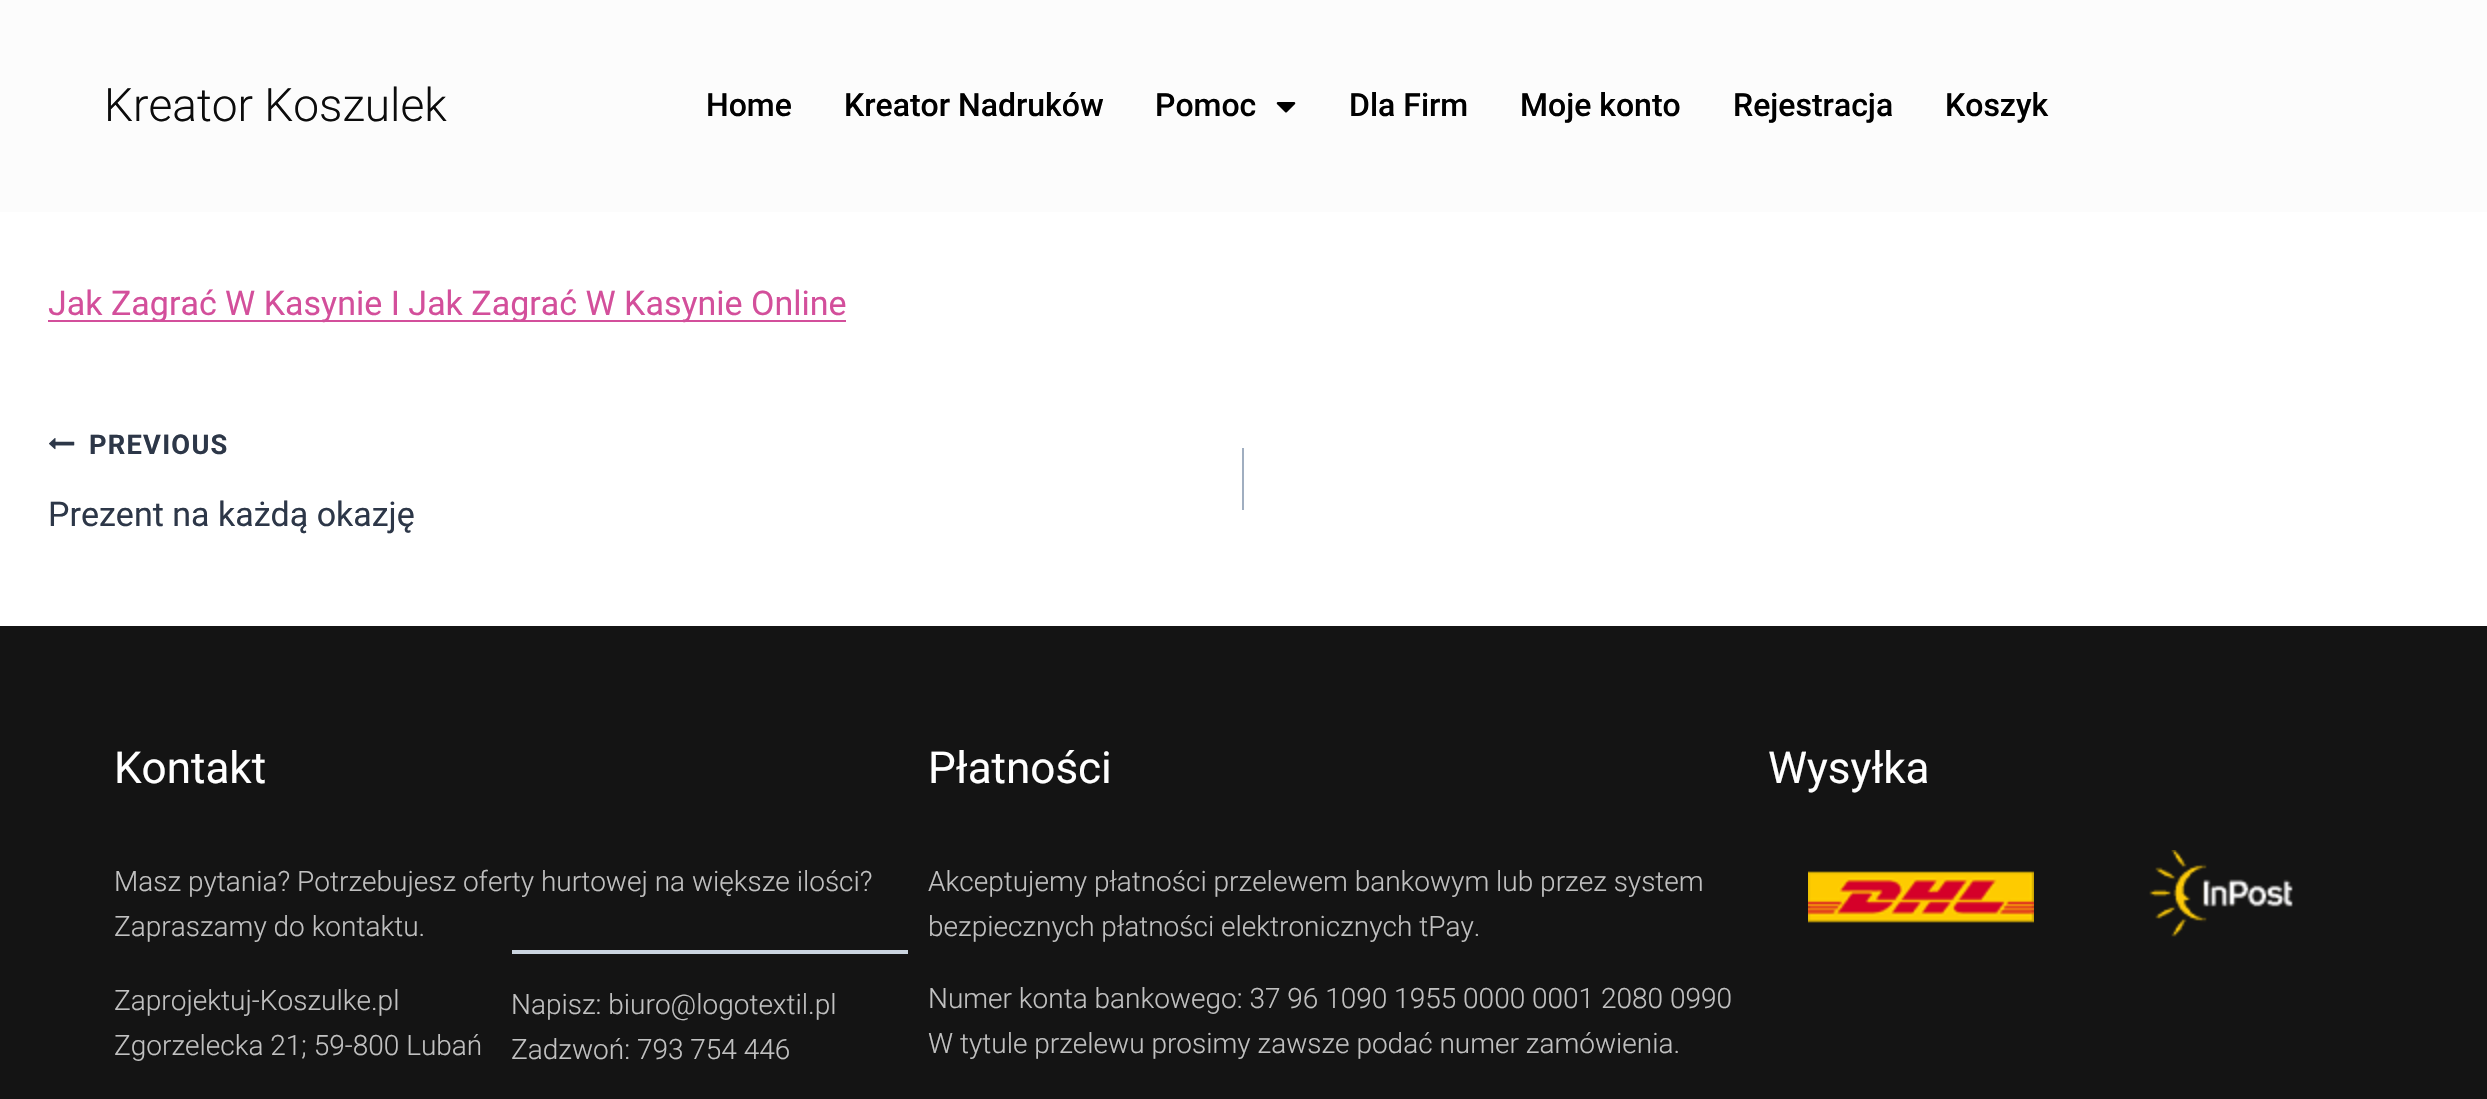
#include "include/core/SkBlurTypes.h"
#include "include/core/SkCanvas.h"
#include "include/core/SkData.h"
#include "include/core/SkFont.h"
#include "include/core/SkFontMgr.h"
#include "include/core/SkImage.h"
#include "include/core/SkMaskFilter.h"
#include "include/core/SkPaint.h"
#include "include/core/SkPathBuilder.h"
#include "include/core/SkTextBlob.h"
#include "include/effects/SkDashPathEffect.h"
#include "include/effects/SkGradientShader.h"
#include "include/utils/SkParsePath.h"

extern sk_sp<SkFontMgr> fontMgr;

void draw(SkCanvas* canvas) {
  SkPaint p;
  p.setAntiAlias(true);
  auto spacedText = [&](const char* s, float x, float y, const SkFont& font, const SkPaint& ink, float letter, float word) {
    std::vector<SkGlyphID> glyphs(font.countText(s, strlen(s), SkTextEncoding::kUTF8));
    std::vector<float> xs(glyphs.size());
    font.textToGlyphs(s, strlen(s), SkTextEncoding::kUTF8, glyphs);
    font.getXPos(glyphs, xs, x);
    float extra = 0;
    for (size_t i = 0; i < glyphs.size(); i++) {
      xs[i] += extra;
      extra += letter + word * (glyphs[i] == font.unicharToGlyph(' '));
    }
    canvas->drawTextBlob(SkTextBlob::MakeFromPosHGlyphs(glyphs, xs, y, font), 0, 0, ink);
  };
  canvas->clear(SK_ColorWHITE);
  p.setColor(SkColorSetRGB(252, 252, 252));
  canvas->drawRect(SkRect::MakeLTRB(0, 0, 2487, 212), p);
  canvas->drawImageRect(SkImages::DeferredFromEncodedData(SkData::MakeFromFileName("images/1.png")), SkRect::MakeLTRB(1276, 102, 1296, 113), SkSamplingOptions());
  p.setColor(SkColorSetRGB(211, 79, 155));
  canvas->drawRect(SkRect::MakeLTRB(48, 320, 846, 322), p);
  canvas->drawImageRect(SkImages::DeferredFromEncodedData(SkData::MakeFromFileName("images/2.png")), SkRect::MakeLTRB(49, 438, 75, 450), SkSamplingOptions());
  p.setColor(SkColorSetRGB(160, 174, 192));
  canvas->drawRect(SkRect::MakeLTRB(1242, 448, 1244, 510), p);
  p.setColor(SkColorSetRGB(20, 20, 20));
  canvas->drawRect(SkRect::MakeLTRB(0, 626, 2487, 1099), p);
  p.setColor(SkColorSetRGB(203, 213, 224));
  canvas->drawRect(SkRect::MakeLTRB(512, 950, 908, 954), p);
  canvas->drawImageRect(SkImages::DeferredFromEncodedData(SkData::MakeFromFileName("images/3.png")), SkRect::MakeLTRB(1808, 871, 2034, 923), SkSamplingOptions());
  canvas->drawImageRect(SkImages::DeferredFromEncodedData(SkData::MakeFromFileName("images/4.png")), SkRect::MakeLTRB(2149, 850, 2293, 937), SkSamplingOptions());
  SkFont font1(fontMgr->matchFamilyStyle("Roboto", SkFontStyle(300, SkFontStyle::kNormal_Width, SkFontStyle::kUpright_Slant)), 46);
  font1.setSubpixel(true);
  p.setColor(SkColorSetRGB(12, 12, 12));
  canvas->drawString("Kreator Koszulek", 104, 121, font1, p);
  SkFont font2(fontMgr->matchFamilyStyle("Roboto", SkFontStyle(500, SkFontStyle::kNormal_Width, SkFontStyle::kUpright_Slant)), 32);
  font2.setSubpixel(true);
  p.setColor(SK_ColorBLACK);
  canvas->drawString("Home", 706, 116, font2, p);
  canvas->drawString("Kreator Nadruków", 844, 116, font2, p);
  canvas->drawString("Pomoc", 1155, 116, font2, p);
  canvas->drawString("Dla Firm", 1349, 116, font2, p);
  canvas->drawString("Moje konto", 1520, 116, font2, p);
  canvas->drawString("Rejestracja", 1733, 116, font2, p);
  canvas->drawString("Koszyk", 1945, 116, font2, p);
  SkFont font3(fontMgr->matchFamilyStyle("Roboto", SkFontStyle::Normal()), 34);
  font3.setSubpixel(true);
  p.setColor(SkColorSetRGB(211, 79, 155));
  canvas->drawString("Jak Zagrać W Kasynie I Jak Zagrać W Kasynie Online", 48, 315, font3, p);
  SkFont font4(fontMgr->matchFamilyStyle("Roboto", SkFontStyle::Bold()), 27.25f);
  font4.setSubpixel(true);
  p.setColor(SkColorSetRGB(45, 55, 72));
  spacedText("PREVIOUS", 89, 454, font4, p, 1.25f, 0);
  canvas->drawString("Prezent na każdą okazję", 48, 526, font3, p);
  SkFont font5(fontMgr->matchFamilyStyle("Roboto", SkFontStyle::Normal()), 44);
  font5.setSubpixel(true);
  p.setColor(SK_ColorWHITE);
  canvas->drawString("Kontakt", 114, 783, font5, p);
  SkFont font6(fontMgr->matchFamilyStyle("Roboto", SkFontStyle(300, SkFontStyle::kNormal_Width, SkFontStyle::kUpright_Slant)), 28);
  font6.setSubpixel(true);
  p.setColor(SkColorSetRGB(193, 193, 193));
  canvas->drawString("Masz pytania? Potrzebujesz oferty hurtowej na większe ilości?", 114, 891, font6, p);
  canvas->drawString("Zapraszamy do kontaktu.", 114, 936, font6, p);
  canvas->drawString("Zaprojektuj-Koszulke.pl", 114, 1010, font6, p);
  canvas->drawString("Zgorzelecka 21; 59-800 Lubań", 114, 1055, font6, p);
  canvas->drawString("Napisz: biuro@logotextil.pl", 511, 1014, font6, p);
  canvas->drawString("Zadzwoń: 793 754 446", 511, 1059, font6, p);
  p.setColor(SK_ColorWHITE);
  canvas->drawString("Płatności", 928, 783, font5, p);
  p.setColor(SkColorSetRGB(193, 193, 193));
  canvas->drawString("Akceptujemy płatności przelewem bankowym lub przez system", 928, 891, font6, p);
  canvas->drawString("bezpiecznych płatności elektronicznych tPay.", 928, 936, font6, p);
  canvas->drawString("Numer konta bankowego: 37 96 1090 1955 0000 0001 2080 0990", 928, 1008, font6, p);
  canvas->drawString("W tytule przelewu prosimy zawsze podać numer zamówienia.", 928, 1053, font6, p);
  p.setColor(SK_ColorWHITE);
  canvas->drawString("Wysyłka", 1768, 783, font5, p);
}
